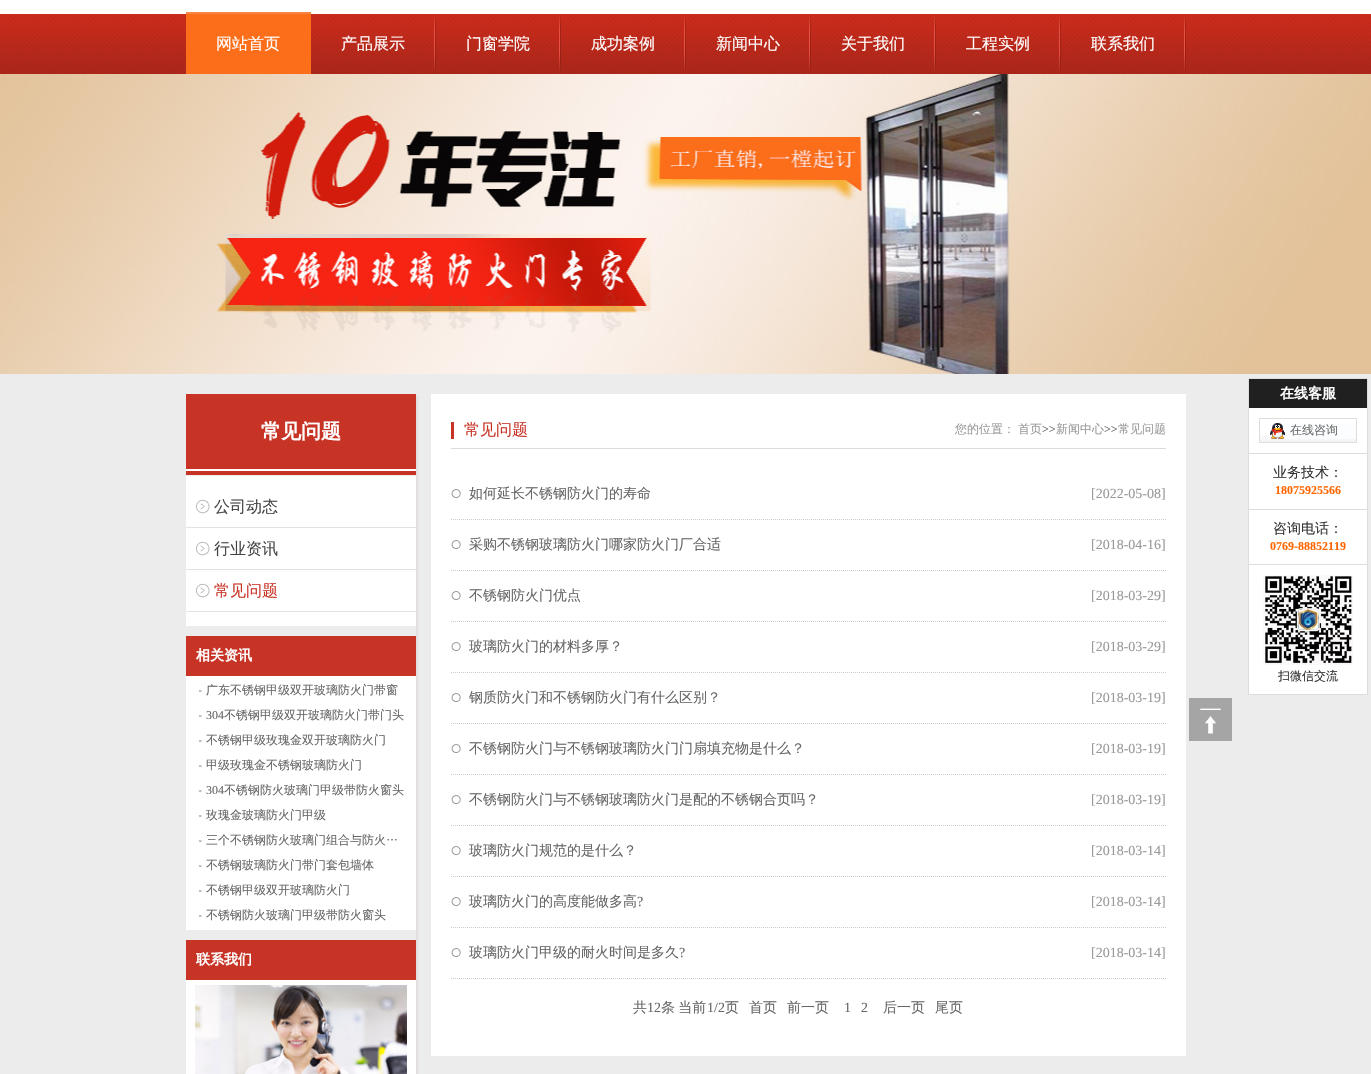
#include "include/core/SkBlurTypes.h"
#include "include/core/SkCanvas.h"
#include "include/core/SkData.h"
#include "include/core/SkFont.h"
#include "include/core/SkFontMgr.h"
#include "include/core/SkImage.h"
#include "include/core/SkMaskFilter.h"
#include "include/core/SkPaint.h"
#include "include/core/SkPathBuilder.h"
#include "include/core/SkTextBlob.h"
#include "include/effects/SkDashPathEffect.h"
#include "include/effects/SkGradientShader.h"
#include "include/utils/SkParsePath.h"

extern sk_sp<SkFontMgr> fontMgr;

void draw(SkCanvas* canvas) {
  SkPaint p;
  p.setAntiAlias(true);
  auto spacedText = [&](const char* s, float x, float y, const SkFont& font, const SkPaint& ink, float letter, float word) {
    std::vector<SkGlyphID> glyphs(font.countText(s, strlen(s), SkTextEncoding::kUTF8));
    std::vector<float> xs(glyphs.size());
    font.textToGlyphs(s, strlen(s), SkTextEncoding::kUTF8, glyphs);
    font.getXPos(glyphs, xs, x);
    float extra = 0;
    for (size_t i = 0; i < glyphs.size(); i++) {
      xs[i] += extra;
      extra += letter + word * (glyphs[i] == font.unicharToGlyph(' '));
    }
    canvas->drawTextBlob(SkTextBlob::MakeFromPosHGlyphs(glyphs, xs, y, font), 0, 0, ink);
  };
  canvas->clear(SK_ColorWHITE);
  canvas->drawImageRect(SkImages::DeferredFromEncodedData(SkData::MakeFromFileName("images/1.png")), SkRect::MakeLTRB(0, 14, 1371, 74), SkSamplingOptions());
  p.setColor(SkColorSetRGB(252, 110, 25));
  canvas->drawRect(SkRect::MakeLTRB(186, 14, 311, 74), p);
  p.setColor(SkColorSetRGB(246, 132, 66));
  canvas->drawRect(SkRect::MakeLTRB(186, 12, 311, 14), p);
  canvas->drawImageRect(SkImages::DeferredFromEncodedData(SkData::MakeFromFileName("images/2.png")), SkRect::MakeLTRB(434, 14, 436, 72), SkSamplingOptions());
  canvas->drawImageRect(SkImages::DeferredFromEncodedData(SkData::MakeFromFileName("images/2.png")), SkRect::MakeLTRB(559, 14, 561, 72), SkSamplingOptions());
  canvas->drawImageRect(SkImages::DeferredFromEncodedData(SkData::MakeFromFileName("images/2.png")), SkRect::MakeLTRB(684, 14, 686, 72), SkSamplingOptions());
  canvas->drawImageRect(SkImages::DeferredFromEncodedData(SkData::MakeFromFileName("images/2.png")), SkRect::MakeLTRB(809, 14, 811, 72), SkSamplingOptions());
  canvas->drawImageRect(SkImages::DeferredFromEncodedData(SkData::MakeFromFileName("images/2.png")), SkRect::MakeLTRB(934, 14, 936, 72), SkSamplingOptions());
  canvas->drawImageRect(SkImages::DeferredFromEncodedData(SkData::MakeFromFileName("images/2.png")), SkRect::MakeLTRB(1059, 14, 1061, 72), SkSamplingOptions());
  canvas->drawImageRect(SkImages::DeferredFromEncodedData(SkData::MakeFromFileName("images/2.png")), SkRect::MakeLTRB(1184, 14, 1186, 72), SkSamplingOptions());
  canvas->drawImageRect(SkImages::DeferredFromEncodedData(SkData::MakeFromFileName("images/3.png")), SkRect::MakeLTRB(0, 74, 1371, 374), SkSamplingOptions());
  p.setColor(SkColorSetRGB(236, 236, 236));
  canvas->drawRect(SkRect::MakeLTRB(0, 374, 1371, 1074), p);
  canvas->save();
  canvas->clipRect(SkRect::MakeLTRB(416, 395, 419, 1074));
  p.setColor(SkColorSetRGB(228, 223, 223));
  p.setMaskFilter(SkMaskFilter::MakeBlur(kNormal_SkBlurStyle, 0.5f));
  canvas->drawRect(SkRect::MakeLTRB(188, 396, 418, 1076), p);
  p.setMaskFilter(nullptr);
  canvas->restore();
  canvas->drawImageRect(SkImages::DeferredFromEncodedData(SkData::MakeFromFileName("images/4.png")), SkRect::MakeLTRB(186, 394, 416, 475), SkSamplingOptions());
  p.setColor(SK_ColorWHITE);
  canvas->drawRect(SkRect::MakeLTRB(186, 476, 416, 626), p);
  canvas->drawImageRect(SkImages::DeferredFromEncodedData(SkData::MakeFromFileName("images/5.png")), SkRect::MakeLTRB(196, 499, 210, 514), SkSamplingOptions());
  p.setColor(SkColorSetRGB(226, 226, 226));
  canvas->drawRect(SkRect::MakeLTRB(186, 527, 416, 528), p);
  canvas->drawImageRect(SkImages::DeferredFromEncodedData(SkData::MakeFromFileName("images/5.png")), SkRect::MakeLTRB(196, 541, 210, 556), SkSamplingOptions());
  canvas->drawRect(SkRect::MakeLTRB(186, 569, 416, 570), p);
  canvas->drawImageRect(SkImages::DeferredFromEncodedData(SkData::MakeFromFileName("images/5.png")), SkRect::MakeLTRB(196, 583, 210, 598), SkSamplingOptions());
  canvas->drawRect(SkRect::MakeLTRB(186, 611, 416, 612), p);
  p.setColor(SkColorSetRGB(199, 52, 38));
  canvas->drawRect(SkRect::MakeLTRB(186, 636, 416, 676), p);
  p.setColor(SK_ColorWHITE);
  canvas->drawRect(SkRect::MakeLTRB(186, 676, 416, 930), p);
  canvas->drawImageRect(SkImages::DeferredFromEncodedData(SkData::MakeFromFileName("images/6.png")), SkRect::MakeLTRB(198, 690, 202, 693), SkSamplingOptions());
  canvas->drawImageRect(SkImages::DeferredFromEncodedData(SkData::MakeFromFileName("images/6.png")), SkRect::MakeLTRB(198, 715, 202, 718), SkSamplingOptions());
  canvas->drawImageRect(SkImages::DeferredFromEncodedData(SkData::MakeFromFileName("images/6.png")), SkRect::MakeLTRB(198, 740, 202, 743), SkSamplingOptions());
  canvas->drawImageRect(SkImages::DeferredFromEncodedData(SkData::MakeFromFileName("images/6.png")), SkRect::MakeLTRB(198, 765, 202, 768), SkSamplingOptions());
  canvas->drawImageRect(SkImages::DeferredFromEncodedData(SkData::MakeFromFileName("images/6.png")), SkRect::MakeLTRB(198, 790, 202, 793), SkSamplingOptions());
  canvas->drawImageRect(SkImages::DeferredFromEncodedData(SkData::MakeFromFileName("images/6.png")), SkRect::MakeLTRB(198, 815, 202, 818), SkSamplingOptions());
  canvas->drawImageRect(SkImages::DeferredFromEncodedData(SkData::MakeFromFileName("images/6.png")), SkRect::MakeLTRB(198, 840, 202, 843), SkSamplingOptions());
  canvas->drawImageRect(SkImages::DeferredFromEncodedData(SkData::MakeFromFileName("images/6.png")), SkRect::MakeLTRB(198, 865, 202, 868), SkSamplingOptions());
  canvas->drawImageRect(SkImages::DeferredFromEncodedData(SkData::MakeFromFileName("images/6.png")), SkRect::MakeLTRB(198, 890, 202, 893), SkSamplingOptions());
  canvas->drawImageRect(SkImages::DeferredFromEncodedData(SkData::MakeFromFileName("images/6.png")), SkRect::MakeLTRB(198, 915, 202, 918), SkSamplingOptions());
  p.setColor(SkColorSetRGB(199, 52, 38));
  canvas->drawRect(SkRect::MakeLTRB(186, 940, 416, 980), p);
  p.setColor(SK_ColorWHITE);
  canvas->drawRect(SkRect::MakeLTRB(186, 980, 416, 1074), p);
  canvas->drawImageRect(SkImages::DeferredFromEncodedData(SkData::MakeFromFileName("images/7.png")), SkRect::MakeLTRB(195, 985, 407, 1074), SkSamplingOptions());
  canvas->drawRect(SkRect::MakeLTRB(431, 394, 1186, 1056), p);
  p.setColor(SkColorSetRGB(219, 219, 219));
  canvas->drawRect(SkRect::MakeLTRB(451, 448, 1166, 449), p);
  p.setColor(SkColorSetRGB(199, 52, 38));
  canvas->drawRect(SkRect::MakeLTRB(451, 422, 454, 439), p);
  p.setStyle(SkPaint::kStroke_Style);
  p.setStrokeWidth(1);
  p.setColor(SkColorSetRGB(204, 204, 204));
  p.setPathEffect(SkDashPathEffect::Make({{1, 1}}, 0));
  canvas->drawPath(SkPathBuilder().moveTo(451, 519.5f).lineTo(1166, 519.5f).detach(), p);
  p.setPathEffect(nullptr);
  canvas->drawImageRect(SkImages::DeferredFromEncodedData(SkData::MakeFromFileName("images/8.png")), SkRect::MakeLTRB(451, 489, 461, 498), SkSamplingOptions());
  p.setPathEffect(SkDashPathEffect::Make({{1, 1}}, 0));
  canvas->drawPath(SkPathBuilder().moveTo(451, 570.5f).lineTo(1166, 570.5f).detach(), p);
  p.setPathEffect(nullptr);
  canvas->drawImageRect(SkImages::DeferredFromEncodedData(SkData::MakeFromFileName("images/8.png")), SkRect::MakeLTRB(451, 540, 461, 549), SkSamplingOptions());
  p.setPathEffect(SkDashPathEffect::Make({{1, 1}}, 0));
  canvas->drawPath(SkPathBuilder().moveTo(451, 621.5f).lineTo(1166, 621.5f).detach(), p);
  p.setPathEffect(nullptr);
  canvas->drawImageRect(SkImages::DeferredFromEncodedData(SkData::MakeFromFileName("images/8.png")), SkRect::MakeLTRB(451, 591, 461, 600), SkSamplingOptions());
  p.setPathEffect(SkDashPathEffect::Make({{1, 1}}, 0));
  canvas->drawPath(SkPathBuilder().moveTo(451, 672.5f).lineTo(1166, 672.5f).detach(), p);
  p.setPathEffect(nullptr);
  canvas->drawImageRect(SkImages::DeferredFromEncodedData(SkData::MakeFromFileName("images/8.png")), SkRect::MakeLTRB(451, 642, 461, 651), SkSamplingOptions());
  p.setPathEffect(SkDashPathEffect::Make({{1, 1}}, 0));
  canvas->drawPath(SkPathBuilder().moveTo(451, 723.5f).lineTo(1166, 723.5f).detach(), p);
  p.setPathEffect(nullptr);
  canvas->drawImageRect(SkImages::DeferredFromEncodedData(SkData::MakeFromFileName("images/8.png")), SkRect::MakeLTRB(451, 693, 461, 702), SkSamplingOptions());
  p.setPathEffect(SkDashPathEffect::Make({{1, 1}}, 0));
  canvas->drawPath(SkPathBuilder().moveTo(451, 774.5f).lineTo(1166, 774.5f).detach(), p);
  p.setPathEffect(nullptr);
  canvas->drawImageRect(SkImages::DeferredFromEncodedData(SkData::MakeFromFileName("images/8.png")), SkRect::MakeLTRB(451, 744, 461, 753), SkSamplingOptions());
  p.setPathEffect(SkDashPathEffect::Make({{1, 1}}, 0));
  canvas->drawPath(SkPathBuilder().moveTo(451, 825.5f).lineTo(1166, 825.5f).detach(), p);
  p.setPathEffect(nullptr);
  canvas->drawImageRect(SkImages::DeferredFromEncodedData(SkData::MakeFromFileName("images/8.png")), SkRect::MakeLTRB(451, 795, 461, 804), SkSamplingOptions());
  p.setPathEffect(SkDashPathEffect::Make({{1, 1}}, 0));
  canvas->drawPath(SkPathBuilder().moveTo(451, 876.5f).lineTo(1166, 876.5f).detach(), p);
  p.setPathEffect(nullptr);
  canvas->drawImageRect(SkImages::DeferredFromEncodedData(SkData::MakeFromFileName("images/8.png")), SkRect::MakeLTRB(451, 846, 461, 855), SkSamplingOptions());
  p.setPathEffect(SkDashPathEffect::Make({{1, 1}}, 0));
  canvas->drawPath(SkPathBuilder().moveTo(451, 927.5f).lineTo(1166, 927.5f).detach(), p);
  p.setPathEffect(nullptr);
  canvas->drawImageRect(SkImages::DeferredFromEncodedData(SkData::MakeFromFileName("images/8.png")), SkRect::MakeLTRB(451, 897, 461, 906), SkSamplingOptions());
  p.setPathEffect(SkDashPathEffect::Make({{1, 1}}, 0));
  canvas->drawPath(SkPathBuilder().moveTo(451, 978.5f).lineTo(1166, 978.5f).detach(), p);
  p.setPathEffect(nullptr);
  canvas->drawImageRect(SkImages::DeferredFromEncodedData(SkData::MakeFromFileName("images/8.png")), SkRect::MakeLTRB(451, 948, 461, 957), SkSamplingOptions());
  canvas->drawImageRect(SkImages::DeferredFromEncodedData(SkData::MakeFromFileName("images/9.png")), SkRect::MakeLTRB(1189, 698, 1232, 741), SkSamplingOptions());
  p.setStyle(SkPaint::kFill_Style);
  p.setColor(SK_ColorWHITE);
  canvas->drawRect(SkRect::MakeLTRB(1249, 408, 1367, 694), p);
  p.setColor(SkColorSetRGB(32, 32, 32));
  canvas->drawRect(SkRect::MakeLTRB(1249, 379, 1367, 408), p);
  p.setColor(SkColorSetRGB(221, 221, 221));
  canvas->drawRect(SkRect::MakeLTRB(1248, 378, 1368, 379), p);
  canvas->drawRect(SkRect::MakeLTRB(1367, 378, 1368, 695), p);
  canvas->drawRect(SkRect::MakeLTRB(1248, 378, 1249, 408), p);
  canvas->drawRect(SkRect::MakeLTRB(1248, 453, 1368, 454), p);
  canvas->drawRect(SkRect::MakeLTRB(1248, 408, 1249, 454), p);
  canvas->drawImageRect(SkImages::DeferredFromEncodedData(SkData::MakeFromFileName("images/10.png")), SkRect::MakeLTRB(1260, 435, 1356, 442), SkSamplingOptions());
  canvas->drawImageRect(SkImages::DeferredFromEncodedData(SkData::MakeFromFileName("images/11.png")), SkRect::MakeLTRB(1270, 423, 1356, 439), SkSamplingOptions());
  p.setStyle(SkPaint::kStroke_Style);
  canvas->drawRect(SkRect::MakeLTRB(1259.5f, 418.5f, 1356.5f, 442.5f), p);
  p.setStyle(SkPaint::kFill_Style);
  canvas->drawRect(SkRect::MakeLTRB(1248, 509, 1368, 510), p);
  canvas->drawRect(SkRect::MakeLTRB(1248, 454, 1249, 510), p);
  canvas->drawRect(SkRect::MakeLTRB(1248, 564, 1368, 565), p);
  canvas->drawRect(SkRect::MakeLTRB(1248, 510, 1249, 565), p);
  canvas->drawRect(SkRect::MakeLTRB(1248, 694, 1368, 695), p);
  canvas->drawRect(SkRect::MakeLTRB(1248, 565, 1249, 695), p);
  canvas->drawImageRect(SkImages::DeferredFromEncodedData(SkData::MakeFromFileName("images/12.png")), SkRect::MakeLTRB(1263, 575, 1353, 665), SkSamplingOptions());
  SkFont font1(fontMgr->matchFamilyStyle("WenQuanYi Zen Hei", SkFontStyle(500, SkFontStyle::kNormal_Width, SkFontStyle::kUpright_Slant)), 16);
  font1.setSubpixel(true);
  p.setColor(SK_ColorWHITE);
  canvas->drawString("网站首页", 216, 49, font1, p);
  canvas->drawString("产品展示", 341, 49, font1, p);
  canvas->drawString("门窗学院", 466, 49, font1, p);
  canvas->drawString("成功案例", 591, 49, font1, p);
  canvas->drawString("新闻中心", 716, 49, font1, p);
  canvas->drawString("关于我们", 841, 49, font1, p);
  canvas->drawString("工程实例", 966, 49, font1, p);
  canvas->drawString("联系我们", 1091, 49, font1, p);
  SkFont font2(fontMgr->matchFamilyStyle("WenQuanYi Zen Hei", SkFontStyle::Bold()), 20);
  font2.setSubpixel(true);
  canvas->drawString("常见问题", 261, 438, font2, p);
  p.setColor(SkColorSetRGB(70, 69, 69));
  canvas->drawString("公司动态", 214, 512, font1, p);
  canvas->drawString("行业资讯", 214, 554, font1, p);
  p.setColor(SkColorSetRGB(199, 52, 38));
  canvas->drawString("常见问题", 214, 596, font1, p);
  SkFont font3(fontMgr->matchFamilyStyle("WenQuanYi Zen Hei", SkFontStyle::Bold()), 14);
  font3.setSubpixel(true);
  p.setColor(SK_ColorWHITE);
  canvas->drawString("相关资讯", 196, 660, font3, p);
  SkFont font4(fontMgr->matchFamilyStyle("WenQuanYi Zen Hei", SkFontStyle(500, SkFontStyle::kNormal_Width, SkFontStyle::kUpright_Slant)), 12);
  font4.setSubpixel(true);
  p.setColor(SkColorSetRGB(102, 102, 102));
  canvas->drawString("广东不锈钢甲级双开玻璃防火门带窗", 206, 694, font4, p);
  SkFont font5(fontMgr->matchFamilyStyle("Liberation Serif", SkFontStyle::Normal()), 12);
  font5.setSubpixel(true);
  canvas->drawString("304", 206, 719, font5, p);
  canvas->drawString("不锈钢甲级双开玻璃防火门带门头", 224, 719, font4, p);
  canvas->drawString("不锈钢甲级玫瑰金双开玻璃防火门", 206, 744, font4, p);
  canvas->drawString("甲级玫瑰金不锈钢玻璃防火门", 206, 769, font4, p);
  canvas->drawString("304", 206, 794, font5, p);
  canvas->drawString("不锈钢防火玻璃门甲级带防火窗头", 224, 794, font4, p);
  canvas->drawString("玫瑰金玻璃防火门甲级", 206, 819, font4, p);
  canvas->drawString("三个不锈钢防火玻璃门组合与防火…", 206, 844, font4, p);
  canvas->drawString("不锈钢玻璃防火门带门套包墙体", 206, 869, font4, p);
  canvas->drawString("不锈钢甲级双开玻璃防火门", 206, 894, font4, p);
  canvas->drawString("不锈钢防火玻璃门甲级带防火窗头", 206, 919, font4, p);
  p.setColor(SK_ColorWHITE);
  canvas->drawString("联系我们", 196, 964, font3, p);
  p.setColor(SkColorSetRGB(199, 52, 38));
  canvas->drawString("常见问题", 464, 435, font1, p);
  p.setColor(SkColorSetRGB(153, 153, 153));
  canvas->drawString("您的位置：", 955, 433, font4, p);
  canvas->drawString("首页", 1018, 433, font4, p);
  p.setColor(SkColorSetRGB(102, 102, 102));
  canvas->drawString(">>", 1042, 433, font5, p);
  p.setColor(SkColorSetRGB(153, 153, 153));
  canvas->drawString("新闻中心", 1056, 433, font4, p);
  p.setColor(SkColorSetRGB(102, 102, 102));
  canvas->drawString(">>", 1104, 433, font5, p);
  p.setColor(SkColorSetRGB(153, 153, 153));
  canvas->drawString("常见问题", 1118, 433, font4, p);
  SkFont font6(fontMgr->matchFamilyStyle("WenQuanYi Zen Hei", SkFontStyle(500, SkFontStyle::kNormal_Width, SkFontStyle::kUpright_Slant)), 14);
  font6.setSubpixel(true);
  p.setColor(SkColorSetRGB(102, 102, 102));
  canvas->drawString("如何延长不锈钢防火门的寿命", 469, 498, font6, p);
  SkFont font7(fontMgr->matchFamilyStyle("Liberation Serif", SkFontStyle::Normal()), 14);
  font7.setSubpixel(true);
  p.setColor(SkColorSetRGB(153, 153, 153));
  canvas->drawString("[2022-05-08]", 1091, 498, font7, p);
  p.setColor(SkColorSetRGB(102, 102, 102));
  canvas->drawString("采购不锈钢玻璃防火门哪家防火门厂合适", 469, 549, font6, p);
  p.setColor(SkColorSetRGB(153, 153, 153));
  canvas->drawString("[2018-04-16]", 1091, 549, font7, p);
  p.setColor(SkColorSetRGB(102, 102, 102));
  canvas->drawString("不锈钢防火门优点", 469, 600, font6, p);
  p.setColor(SkColorSetRGB(153, 153, 153));
  canvas->drawString("[2018-03-29]", 1091, 600, font7, p);
  p.setColor(SkColorSetRGB(102, 102, 102));
  canvas->drawString("玻璃防火门的材料多厚？", 469, 651, font6, p);
  p.setColor(SkColorSetRGB(153, 153, 153));
  canvas->drawString("[2018-03-29]", 1091, 651, font7, p);
  p.setColor(SkColorSetRGB(102, 102, 102));
  canvas->drawString("钢质防火门和不锈钢防火门有什么区别？", 469, 702, font6, p);
  p.setColor(SkColorSetRGB(153, 153, 153));
  canvas->drawString("[2018-03-19]", 1091, 702, font7, p);
  p.setColor(SkColorSetRGB(102, 102, 102));
  canvas->drawString("不锈钢防火门与不锈钢玻璃防火门门扇填充物是什么？", 469, 753, font6, p);
  p.setColor(SkColorSetRGB(153, 153, 153));
  canvas->drawString("[2018-03-19]", 1091, 753, font7, p);
  p.setColor(SkColorSetRGB(102, 102, 102));
  canvas->drawString("不锈钢防火门与不锈钢玻璃防火门是配的不锈钢合页吗？", 469, 804, font6, p);
  p.setColor(SkColorSetRGB(153, 153, 153));
  canvas->drawString("[2018-03-19]", 1091, 804, font7, p);
  p.setColor(SkColorSetRGB(102, 102, 102));
  canvas->drawString("玻璃防火门规范的是什么？", 469, 855, font6, p);
  p.setColor(SkColorSetRGB(153, 153, 153));
  canvas->drawString("[2018-03-14]", 1091, 855, font7, p);
  p.setColor(SkColorSetRGB(102, 102, 102));
  canvas->drawString("玻璃防火门的高度能做多高", 469, 906, font6, p);
  canvas->drawString("?", 637, 906, font7, p);
  p.setColor(SkColorSetRGB(153, 153, 153));
  canvas->drawString("[2018-03-14]", 1091, 906, font7, p);
  p.setColor(SkColorSetRGB(102, 102, 102));
  canvas->drawString("玻璃防火门甲级的耐火时间是多久", 469, 957, font6, p);
  canvas->drawString("?", 679, 957, font7, p);
  p.setColor(SkColorSetRGB(153, 153, 153));
  canvas->drawString("[2018-03-14]", 1091, 957, font7, p);
  p.setColor(SkColorSetRGB(102, 102, 102));
  canvas->drawString("共", 633, 1012, font6, p);
  canvas->drawString("12", 647, 1012, font7, p);
  spacedText("条 当前", 661, 1012, font6, p, 0, -1);
  canvas->drawString("1/2", 707, 1012, font7, p);
  canvas->drawString("页", 725, 1012, font6, p);
  canvas->drawString("首页", 749, 1012, font6, p);
  canvas->drawString("前一页", 787, 1012, font6, p);
  canvas->drawString("1", 844, 1012, font7, p);
  canvas->drawString("2", 861, 1012, font7, p);
  canvas->drawString("后一页", 883, 1012, font6, p);
  canvas->drawString("尾页", 935, 1012, font6, p);
  p.setColor(SK_ColorWHITE);
  canvas->drawString("在线客服", 1280, 398, font3, p);
  p.setColor(SkColorSetRGB(102, 102, 102));
  canvas->drawString("在线咨询", 1290, 434, font4, p);
  p.setColor(SkColorSetRGB(51, 51, 51));
  canvas->drawString("业务技术：", 1273, 477, font6, p);
  SkFont font8(fontMgr->matchFamilyStyle("Liberation Serif", SkFontStyle::Bold()), 12);
  font8.setSubpixel(true);
  p.setColor(SkColorSetRGB(255, 102, 0));
  canvas->drawString("18075925566", 1275, 494, font8, p);
  p.setColor(SkColorSetRGB(51, 51, 51));
  canvas->drawString("咨询电话：", 1273, 533, font6, p);
  p.setColor(SkColorSetRGB(255, 102, 0));
  canvas->drawString("0769-88852119", 1270, 550, font8, p);
  p.setColor(SkColorSetRGB(51, 51, 51));
  canvas->drawString("扫微信交流", 1278, 680, font4, p);
}
